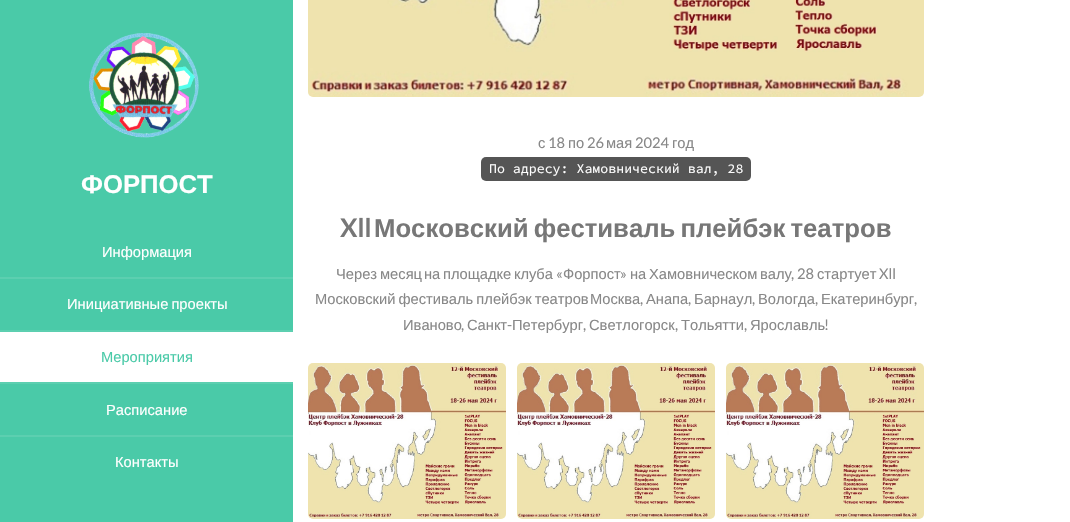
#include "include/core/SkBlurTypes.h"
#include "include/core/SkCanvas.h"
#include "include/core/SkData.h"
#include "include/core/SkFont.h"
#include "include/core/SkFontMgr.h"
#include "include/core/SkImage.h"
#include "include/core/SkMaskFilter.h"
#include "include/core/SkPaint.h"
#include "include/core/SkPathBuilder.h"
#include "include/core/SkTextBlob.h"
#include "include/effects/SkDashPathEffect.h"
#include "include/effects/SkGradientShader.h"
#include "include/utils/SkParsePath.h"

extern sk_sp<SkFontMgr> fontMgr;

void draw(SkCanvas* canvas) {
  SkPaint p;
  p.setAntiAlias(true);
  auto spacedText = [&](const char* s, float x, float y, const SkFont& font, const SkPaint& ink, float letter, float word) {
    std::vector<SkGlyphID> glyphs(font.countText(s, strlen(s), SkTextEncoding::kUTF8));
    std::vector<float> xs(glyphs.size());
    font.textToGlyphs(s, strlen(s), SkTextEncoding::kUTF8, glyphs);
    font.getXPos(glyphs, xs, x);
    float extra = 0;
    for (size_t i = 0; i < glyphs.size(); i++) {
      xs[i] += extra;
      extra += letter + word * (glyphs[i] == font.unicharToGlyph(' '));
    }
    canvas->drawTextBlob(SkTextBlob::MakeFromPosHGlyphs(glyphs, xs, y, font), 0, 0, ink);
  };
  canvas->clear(SK_ColorWHITE);
  p.setColor(SkColorSetRGB(74, 202, 168));
  canvas->drawRect(SkRect::MakeLTRB(0, 0, 293, 522), p);
  canvas->drawImageRect(SkImages::DeferredFromEncodedData(SkData::MakeFromFileName("images/1.png")), SkRect::MakeLTRB(89, 33, 199, 138), SkSamplingOptions());
  p.setColor(SkColorSetRGB(92, 207, 176));
  canvas->drawRect(SkRect::MakeLTRB(0, 277, 293, 279), p);
  p.setColor(SK_ColorWHITE);
  canvas->drawRect(SkRect::MakeLTRB(0, 332, 293, 382), p);
  p.setColor(SkColorSetRGB(92, 207, 176));
  canvas->drawRect(SkRect::MakeLTRB(0, 330, 293, 332), p);
  canvas->drawRect(SkRect::MakeLTRB(0, 382, 293, 384), p);
  canvas->drawRect(SkRect::MakeLTRB(0, 435, 293, 437), p);
  canvas->drawImageRect(SkImages::DeferredFromEncodedData(SkData::MakeFromFileName("images/2.png")), SkRect::MakeLTRB(308, 0, 924, 97), SkSamplingOptions());
  p.setColor(SkColorSetRGB(85, 85, 85));
  canvas->drawRoundRect(SkRect::MakeLTRB(481, 157, 751, 181), 5, 5, p);
  canvas->drawImageRect(SkImages::DeferredFromEncodedData(SkData::MakeFromFileName("images/3.png")), SkRect::MakeLTRB(308, 363, 506, 519), SkSamplingOptions());
  canvas->drawImageRect(SkImages::DeferredFromEncodedData(SkData::MakeFromFileName("images/4.png")), SkRect::MakeLTRB(517, 363, 715, 519), SkSamplingOptions());
  canvas->drawImageRect(SkImages::DeferredFromEncodedData(SkData::MakeFromFileName("images/5.png")), SkRect::MakeLTRB(726, 363, 924, 519), SkSamplingOptions());
  SkFont font1(fontMgr->matchFamilyStyle("Liberation Sans", SkFontStyle::Bold()), 25.7f);
  font1.setSubpixel(true);
  p.setColor(SK_ColorWHITE);
  canvas->drawString("ФОРПОСТ", 81, 193, font1, p);
  SkFont font2(fontMgr->matchFamilyStyle("Liberation Sans", SkFontStyle::Normal()), 14.7f);
  font2.setSubpixel(true);
  canvas->drawString("Информация", 102, 257, font2, p);
  spacedText("Инициативные проекты", 67, 309, font2, p, 0, -1);
  p.setColor(SkColorSetRGB(74, 202, 168));
  canvas->drawString("Мероприятия", 101, 362, font2, p);
  p.setColor(SK_ColorWHITE);
  canvas->drawString("Расписание", 106, 415, font2, p);
  canvas->drawString("Контакты", 115, 467, font2, p);
  p.setColor(SkColorSetRGB(136, 136, 136));
  canvas->drawString("с", 538, 148, font2, p);
  SkFont font3(fontMgr->matchFamilyStyle("Lato", SkFontStyle::Normal()), 14.7f);
  font3.setSubpixel(true);
  canvas->drawString("18", 548, 148, font3, p);
  canvas->drawString("по", 568, 148, font2, p);
  canvas->drawString("26", 587, 148, font3, p);
  canvas->drawString("мая", 606, 148, font2, p);
  canvas->drawString("2024", 635, 148, font3, p);
  canvas->drawString("год", 672, 148, font2, p);
  SkFont font4(fontMgr->matchFamilyStyle("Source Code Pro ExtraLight", SkFontStyle(200, SkFontStyle::kNormal_Width, SkFontStyle::kUpright_Slant)), 13.25f);
  font4.setSubpixel(true);
  p.setColor(SK_ColorWHITE);
  canvas->drawString("По адресу: Хамовнический вал, 28", 489, 173, font4, p);
  SkFont font5(fontMgr->matchFamilyStyle("Lato", SkFontStyle::Bold()), 25.7f);
  font5.setSubpixel(true);
  p.setColor(SkColorSetRGB(119, 119, 119));
  canvas->drawString("Xll", 340, 237, font5, p);
  spacedText("Московский фестиваль плейбэк театров", 374, 237, font1, p, 0, -2);
  p.setColor(SkColorSetRGB(136, 136, 136));
  canvas->drawString("Через", 336, 279, font2, p);
  canvas->drawString("месяц", 380, 279, font2, p);
  canvas->drawString("на", 424, 279, font2, p);
  canvas->drawString("площадке", 443, 279, font2, p);
  canvas->drawString("клуба", 514, 279, font2, p);
  canvas->drawString("«", 556, 279, font3, p);
  canvas->drawString("Форпост", 563, 279, font2, p);
  canvas->drawString("»", 620, 279, font3, p);
  canvas->drawString("на", 630, 279, font2, p);
  canvas->drawString("Хамовническом", 649, 279, font2, p);
  canvas->drawString("валу", 760, 279, font2, p);
  canvas->drawString(", 28", 791, 279, font3, p);
  canvas->drawString("стартует", 817, 279, font2, p);
  canvas->drawString("Xll", 879, 279, font3, p);
  spacedText("Московский фестиваль плейбэк театров", 315, 304, font2, p, 0, -1);
  canvas->drawString("Москва", 590, 304, font2, p);
  canvas->drawString(",", 640, 304, font3, p);
  canvas->drawString("Анапа", 646, 304, font2, p);
  canvas->drawString(",", 688, 304, font3, p);
  canvas->drawString("Барнаул", 694, 304, font2, p);
  canvas->drawString(",", 752, 304, font3, p);
  canvas->drawString("Вологда", 758, 304, font2, p);
  canvas->drawString(",", 815, 304, font3, p);
  canvas->drawString("Екатеринбург", 821, 304, font2, p);
  canvas->drawString(",", 914, 304, font3, p);
  canvas->drawString("Иваново", 403, 330, font2, p);
  canvas->drawString("Санкт", 467, 330, font2, p);
  canvas->drawString("-", 507, 330, font3, p);
  canvas->drawString("Петербург", 512, 330, font2, p);
  canvas->drawString("Светлогорск", 589, 330, font2, p);
  canvas->drawString("Тольятти", 681, 330, font2, p);
  canvas->drawString("Ярославль", 750, 330, font2, p);
  canvas->drawString("!", 824, 330, font3, p);
  canvas->drawString(",", 461, 330, font3, p);
  canvas->drawString(",", 583, 330, font3, p);
  canvas->drawString(",", 675, 330, font3, p);
  canvas->drawString(",", 744, 330, font3, p);
}
